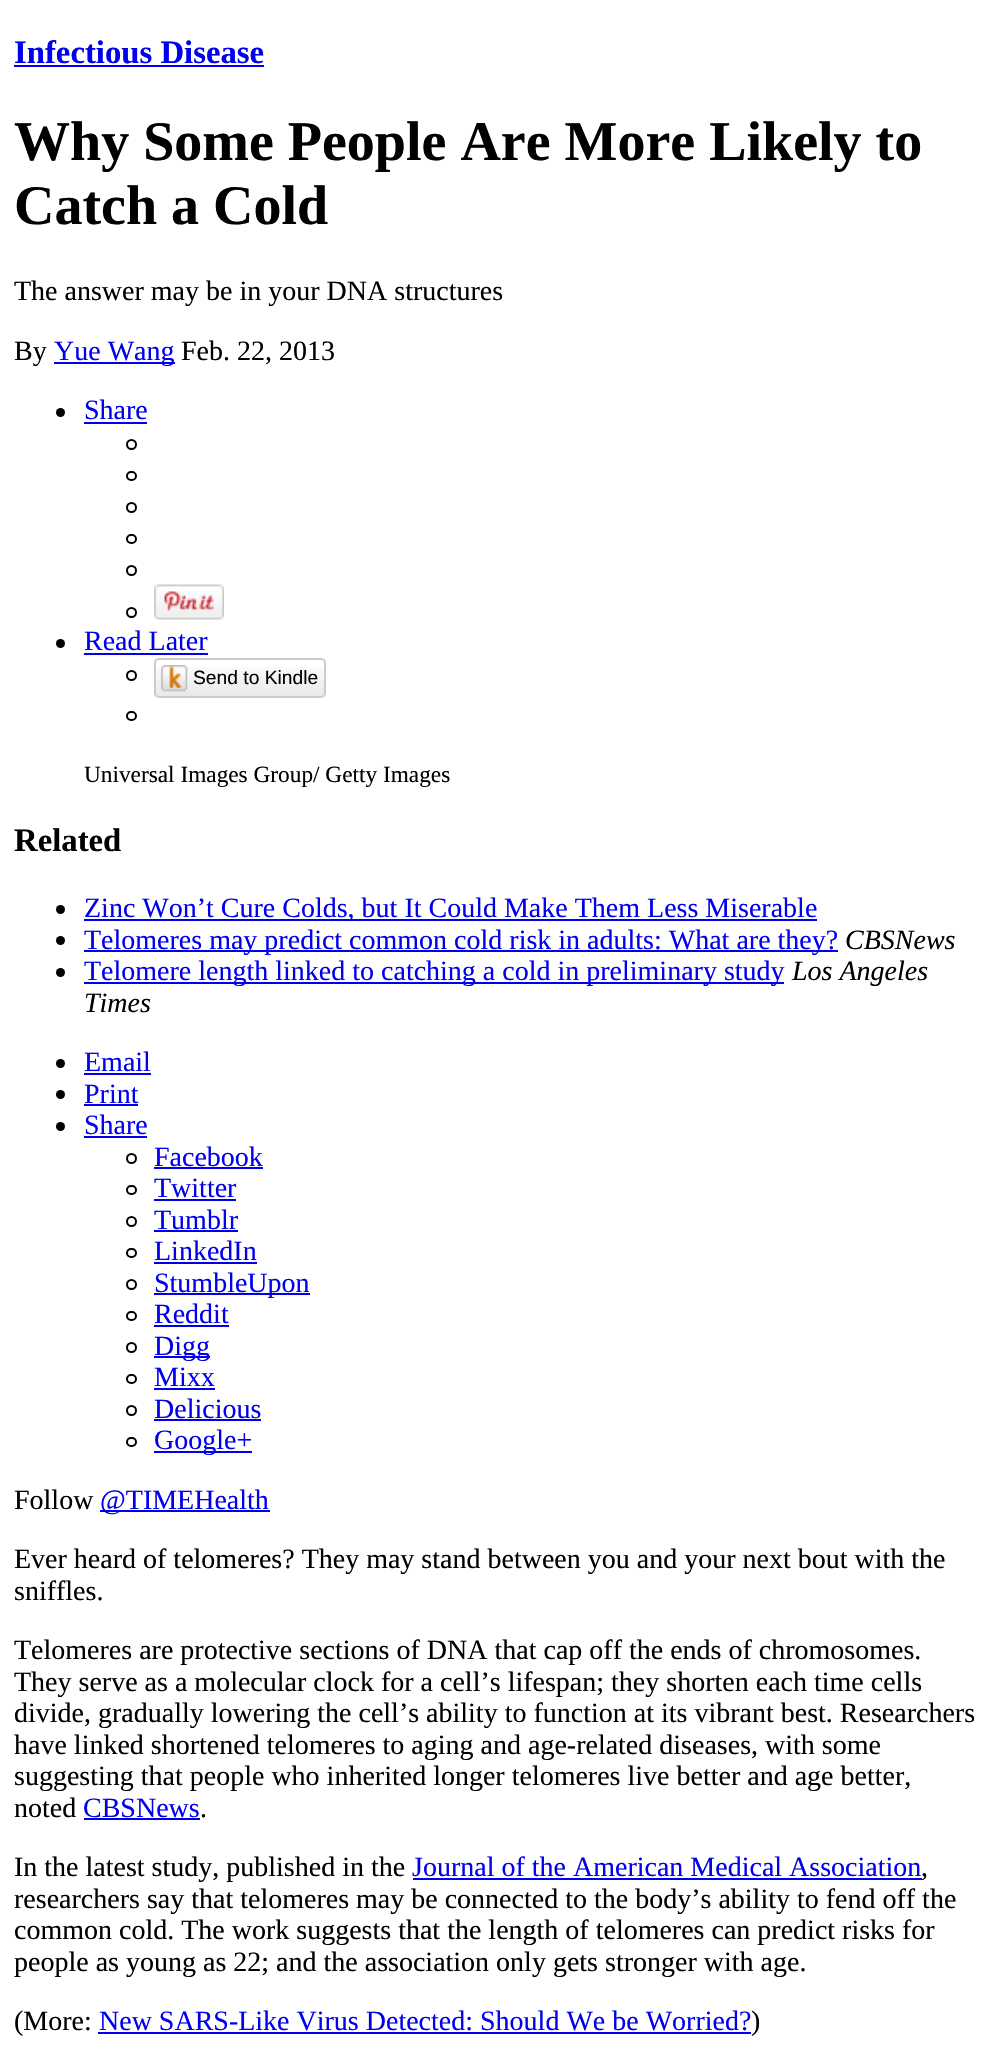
#include "include/core/SkBlurTypes.h"
#include "include/core/SkCanvas.h"
#include "include/core/SkData.h"
#include "include/core/SkFont.h"
#include "include/core/SkFontMgr.h"
#include "include/core/SkImage.h"
#include "include/core/SkMaskFilter.h"
#include "include/core/SkPaint.h"
#include "include/core/SkPathBuilder.h"
#include "include/core/SkTextBlob.h"
#include "include/effects/SkDashPathEffect.h"
#include "include/effects/SkGradientShader.h"
#include "include/utils/SkParsePath.h"

extern sk_sp<SkFontMgr> fontMgr;

void draw(SkCanvas* canvas) {
  SkPaint p;
  p.setAntiAlias(true);
  canvas->clear(SK_ColorWHITE);
  p.setColor(SkColorSetRGB(0, 0, 238));
  canvas->drawRect(SkRect::MakeLTRB(14, 65, 264, 67), p);
  canvas->drawRect(SkRect::MakeLTRB(54, 362, 175, 364), p);
  p.setColor(SK_ColorBLACK);
  canvas->drawCircle(60.5f, 412.5f, 4.5f, p);
  p.setColor(SkColorSetRGB(0, 0, 238));
  canvas->drawRect(SkRect::MakeLTRB(84, 422, 147, 424), p);
  p.setStyle(SkPaint::kStroke_Style);
  p.setStrokeWidth(2);
  p.setColor(SK_ColorBLACK);
  canvas->drawCircle(131.5f, 444.5f, 4.5f, p);
  canvas->drawRoundRect(SkRect::MakeLTRB(127, 472, 136, 480), 4, 4, p);
  canvas->drawCircle(131.5f, 507.5f, 4.5f, p);
  canvas->drawRoundRect(SkRect::MakeLTRB(127, 535, 136, 543), 4, 4, p);
  canvas->drawCircle(131.5f, 570.5f, 4.5f, p);
  canvas->drawCircle(131.5f, 612.5f, 4.5f, p);
  canvas->drawImageRect(SkImages::DeferredFromEncodedData(SkData::MakeFromFileName("images/1.png")), SkRect::MakeLTRB(154, 584, 224, 620), SkSamplingOptions());
  p.setStyle(SkPaint::kFill_Style);
  canvas->drawCircle(60.5f, 643.5f, 4.5f, p);
  p.setColor(SkColorSetRGB(0, 0, 238));
  canvas->drawRect(SkRect::MakeLTRB(84, 653, 208, 655), p);
  p.setStyle(SkPaint::kStroke_Style);
  p.setColor(SK_ColorBLACK);
  canvas->drawCircle(131.5f, 675.5f, 4.5f, p);
  canvas->drawImageRect(SkImages::DeferredFromEncodedData(SkData::MakeFromFileName("images/2.png")), SkRect::MakeLTRB(154, 667, 326, 697), SkSamplingOptions());
  p.setColor(SkColorSetRGB(204, 204, 204));
  canvas->drawRoundRect(SkRect::MakeLTRB(155, 659, 325, 697), 4, 4, p);
  canvas->drawImageRect(SkImages::DeferredFromEncodedData(SkData::MakeFromFileName("images/3.png")), SkRect::MakeLTRB(161, 665, 188, 692), SkSamplingOptions());
  p.setColor(SK_ColorBLACK);
  canvas->drawRoundRect(SkRect::MakeLTRB(127, 712, 136, 720), 4, 4, p);
  p.setStyle(SkPaint::kFill_Style);
  canvas->drawCircle(60.5f, 909.5f, 4.5f, p);
  p.setColor(SkColorSetRGB(0, 0, 238));
  canvas->drawRect(SkRect::MakeLTRB(84, 919, 817, 921), p);
  p.setColor(SK_ColorBLACK);
  canvas->drawCircle(60.5f, 940.5f, 4.5f, p);
  p.setColor(SkColorSetRGB(0, 0, 238));
  canvas->drawRect(SkRect::MakeLTRB(84, 950, 838, 952), p);
  p.setColor(SK_ColorBLACK);
  canvas->drawCircle(60.5f, 972.5f, 4.5f, p);
  p.setColor(SkColorSetRGB(0, 0, 238));
  canvas->drawRect(SkRect::MakeLTRB(84, 982, 784, 984), p);
  p.setColor(SK_ColorBLACK);
  canvas->drawCircle(60.5f, 1063.5f, 4.5f, p);
  p.setColor(SkColorSetRGB(0, 0, 238));
  canvas->drawRect(SkRect::MakeLTRB(84, 1073, 151, 1075), p);
  p.setColor(SK_ColorBLACK);
  canvas->drawCircle(60.5f, 1094.5f, 4.5f, p);
  p.setColor(SkColorSetRGB(0, 0, 238));
  canvas->drawRect(SkRect::MakeLTRB(84, 1104, 138, 1106), p);
  p.setColor(SK_ColorBLACK);
  canvas->drawCircle(60.5f, 1126.5f, 4.5f, p);
  p.setColor(SkColorSetRGB(0, 0, 238));
  canvas->drawRect(SkRect::MakeLTRB(84, 1136, 147, 1138), p);
  p.setStyle(SkPaint::kStroke_Style);
  p.setColor(SK_ColorBLACK);
  canvas->drawCircle(131.5f, 1158.5f, 4.5f, p);
  p.setStyle(SkPaint::kFill_Style);
  p.setColor(SkColorSetRGB(0, 0, 238));
  canvas->drawRect(SkRect::MakeLTRB(154, 1167, 263, 1169), p);
  p.setStyle(SkPaint::kStroke_Style);
  p.setColor(SK_ColorBLACK);
  canvas->drawRoundRect(SkRect::MakeLTRB(127, 1186, 136, 1194), 4, 4, p);
  p.setStyle(SkPaint::kFill_Style);
  p.setColor(SkColorSetRGB(0, 0, 238));
  canvas->drawRect(SkRect::MakeLTRB(154, 1199, 236, 1201), p);
  p.setStyle(SkPaint::kStroke_Style);
  p.setColor(SK_ColorBLACK);
  canvas->drawCircle(131.5f, 1221.5f, 4.5f, p);
  p.setStyle(SkPaint::kFill_Style);
  p.setColor(SkColorSetRGB(0, 0, 238));
  canvas->drawRect(SkRect::MakeLTRB(154, 1230, 238, 1232), p);
  p.setStyle(SkPaint::kStroke_Style);
  p.setColor(SK_ColorBLACK);
  canvas->drawRoundRect(SkRect::MakeLTRB(127, 1249, 136, 1257), 4, 4, p);
  p.setStyle(SkPaint::kFill_Style);
  p.setColor(SkColorSetRGB(0, 0, 238));
  canvas->drawRect(SkRect::MakeLTRB(154, 1262, 257, 1264), p);
  p.setStyle(SkPaint::kStroke_Style);
  p.setColor(SK_ColorBLACK);
  canvas->drawCircle(131.5f, 1284.5f, 4.5f, p);
  p.setStyle(SkPaint::kFill_Style);
  p.setColor(SkColorSetRGB(0, 0, 238));
  canvas->drawRect(SkRect::MakeLTRB(154, 1293, 310, 1295), p);
  p.setStyle(SkPaint::kStroke_Style);
  p.setColor(SK_ColorBLACK);
  canvas->drawRoundRect(SkRect::MakeLTRB(127, 1312, 136, 1320), 4, 4, p);
  p.setStyle(SkPaint::kFill_Style);
  p.setColor(SkColorSetRGB(0, 0, 238));
  canvas->drawRect(SkRect::MakeLTRB(154, 1325, 229, 1327), p);
  p.setStyle(SkPaint::kStroke_Style);
  p.setColor(SK_ColorBLACK);
  canvas->drawCircle(131.5f, 1347.5f, 4.5f, p);
  p.setStyle(SkPaint::kFill_Style);
  p.setColor(SkColorSetRGB(0, 0, 238));
  canvas->drawRect(SkRect::MakeLTRB(154, 1356, 210, 1358), p);
  p.setStyle(SkPaint::kStroke_Style);
  p.setColor(SK_ColorBLACK);
  canvas->drawRoundRect(SkRect::MakeLTRB(127, 1375, 136, 1383), 4, 4, p);
  p.setStyle(SkPaint::kFill_Style);
  p.setColor(SkColorSetRGB(0, 0, 238));
  canvas->drawRect(SkRect::MakeLTRB(154, 1388, 215, 1390), p);
  p.setStyle(SkPaint::kStroke_Style);
  p.setColor(SK_ColorBLACK);
  canvas->drawCircle(131.5f, 1410.5f, 4.5f, p);
  p.setStyle(SkPaint::kFill_Style);
  p.setColor(SkColorSetRGB(0, 0, 238));
  canvas->drawRect(SkRect::MakeLTRB(154, 1419, 261, 1421), p);
  p.setStyle(SkPaint::kStroke_Style);
  p.setColor(SK_ColorBLACK);
  canvas->drawRoundRect(SkRect::MakeLTRB(127, 1438, 136, 1446), 4, 4, p);
  p.setStyle(SkPaint::kFill_Style);
  p.setColor(SkColorSetRGB(0, 0, 238));
  canvas->drawRect(SkRect::MakeLTRB(154, 1451, 252, 1453), p);
  canvas->drawRect(SkRect::MakeLTRB(100, 1510, 270, 1512), p);
  canvas->drawRect(SkRect::MakeLTRB(84, 1818, 200, 1820), p);
  canvas->drawRect(SkRect::MakeLTRB(413, 1878, 922, 1880), p);
  canvas->drawRect(SkRect::MakeLTRB(98, 2032, 751, 2034), p);
  SkFont font1(fontMgr->matchFamilyStyle("Liberation Serif", SkFontStyle::Bold()), 32.75f);
  font1.setSubpixel(true);
  canvas->drawString("Infectious Disease", 14, 63, font1, p);
  SkFont font2(fontMgr->matchFamilyStyle("Liberation Serif", SkFontStyle::Bold()), 56);
  font2.setSubpixel(true);
  p.setColor(SK_ColorBLACK);
  canvas->drawString("Why Some People Are More Likely to", 14, 160, font2, p);
  canvas->drawString("Catch a Cold", 14, 224, font2, p);
  SkFont font3(fontMgr->matchFamilyStyle("Liberation Serif", SkFontStyle::Normal()), 28);
  font3.setSubpixel(true);
  canvas->drawString("The answer may be in your DNA structures", 14, 300, font3, p);
  canvas->drawString("By", 14, 360, font3, p);
  p.setColor(SkColorSetRGB(0, 0, 238));
  canvas->drawString("Yue Wang", 54, 360, font3, p);
  p.setColor(SK_ColorBLACK);
  canvas->drawString("Feb. 22, 2013", 181, 360, font3, p);
  p.setColor(SkColorSetRGB(0, 0, 238));
  canvas->drawString("Share", 84, 419, font3, p);
  canvas->drawString("Read Later", 84, 650, font3, p);
  SkFont font4(fontMgr->matchFamilyStyle("Liberation Sans", SkFontStyle::Normal()), 19.25f);
  font4.setSubpixel(true);
  p.setColor(SK_ColorBLACK);
  canvas->drawString("Send to Kindle", 193, 684, font4, p);
  SkFont font5(fontMgr->matchFamilyStyle("Liberation Serif", SkFontStyle::Normal()), 23.3f);
  font5.setSubpixel(true);
  canvas->drawString("Universal Images Group/ Getty Images", 84, 782, font5, p);
  canvas->drawString("Related", 14, 851, font1, p);
  p.setColor(SkColorSetRGB(0, 0, 238));
  canvas->drawString("Zinc Won’t Cure Colds, but It Could Make Them Less Miserable", 84, 917, font3, p);
  canvas->drawString("Telomeres may predict common cold risk in adults: What are they?", 84, 949, font3, p);
  SkFont font6(fontMgr->matchFamilyStyle("Liberation Serif", SkFontStyle::Italic()), 28);
  font6.setSubpixel(true);
  p.setColor(SK_ColorBLACK);
  canvas->drawString("CBSNews", 845, 949, font6, p);
  p.setColor(SkColorSetRGB(0, 0, 238));
  canvas->drawString("Telomere length linked to catching a cold in preliminary study", 84, 980, font3, p);
  p.setColor(SK_ColorBLACK);
  canvas->drawString("Los Angeles", 792, 980, font6, p);
  canvas->drawString("Times", 84, 1012, font6, p);
  p.setColor(SkColorSetRGB(0, 0, 238));
  canvas->drawString("Email", 84, 1071, font3, p);
  canvas->drawString("Print", 84, 1103, font3, p);
  canvas->drawString("Share", 84, 1134, font3, p);
  canvas->drawString("Facebook", 154, 1166, font3, p);
  canvas->drawString("Twitter", 154, 1197, font3, p);
  canvas->drawString("Tumblr", 154, 1229, font3, p);
  canvas->drawString("LinkedIn", 154, 1260, font3, p);
  canvas->drawString("StumbleUpon", 154, 1292, font3, p);
  canvas->drawString("Reddit", 154, 1323, font3, p);
  canvas->drawString("Digg", 154, 1355, font3, p);
  canvas->drawString("Mixx", 154, 1386, font3, p);
  canvas->drawString("Delicious", 154, 1418, font3, p);
  canvas->drawString("Google+", 154, 1449, font3, p);
  p.setColor(SK_ColorBLACK);
  canvas->drawString("Follow", 14, 1509, font3, p);
  p.setColor(SkColorSetRGB(0, 0, 238));
  canvas->drawString("@TIMEHealth", 100, 1509, font3, p);
  p.setColor(SK_ColorBLACK);
  canvas->drawString("Ever heard of telomeres? They may stand between you and your next bout with the", 14, 1568, font3, p);
  canvas->drawString("sniffles.", 14, 1600, font3, p);
  canvas->drawString("Telomeres are protective sections of DNA that cap off the ends of chromosomes.", 14, 1659, font3, p);
  canvas->drawString("They serve as a molecular clock for a cell’s lifespan; they shorten each time cells", 14, 1691, font3, p);
  canvas->drawString("divide, gradually lowering the cell’s ability to function at its vibrant best. Researchers", 14, 1722, font3, p);
  canvas->drawString("have linked shortened telomeres to aging and age-related diseases, with some", 14, 1754, font3, p);
  canvas->drawString("suggesting that people who inherited longer telomeres live better and age better,", 14, 1785, font3, p);
  canvas->drawString("noted", 14, 1817, font3, p);
  p.setColor(SkColorSetRGB(0, 0, 238));
  canvas->drawString("CBSNews", 83, 1817, font3, p);
  p.setColor(SK_ColorBLACK);
  canvas->drawString(".", 200, 1817, font3, p);
  canvas->drawString("In the latest study, published in the", 14, 1876, font3, p);
  p.setColor(SkColorSetRGB(0, 0, 238));
  canvas->drawString("Journal of the American Medical Association", 412, 1876, font3, p);
  p.setColor(SK_ColorBLACK);
  canvas->drawString(",", 921, 1876, font3, p);
  canvas->drawString("researchers say that telomeres may be connected to the body’s ability to fend off the", 14, 1908, font3, p);
  canvas->drawString("common cold. The work suggests that the length of telomeres can predict risks for", 14, 1939, font3, p);
  canvas->drawString("people as young as 22; and the association only gets stronger with age.", 14, 1971, font3, p);
  canvas->drawString("(More:", 14, 2030, font3, p);
  p.setColor(SkColorSetRGB(0, 0, 238));
  canvas->drawString("New SARS-Like Virus Detected: Should We be Worried?", 99, 2030, font3, p);
  p.setColor(SK_ColorBLACK);
  canvas->drawString(")", 751, 2030, font3, p);
}
